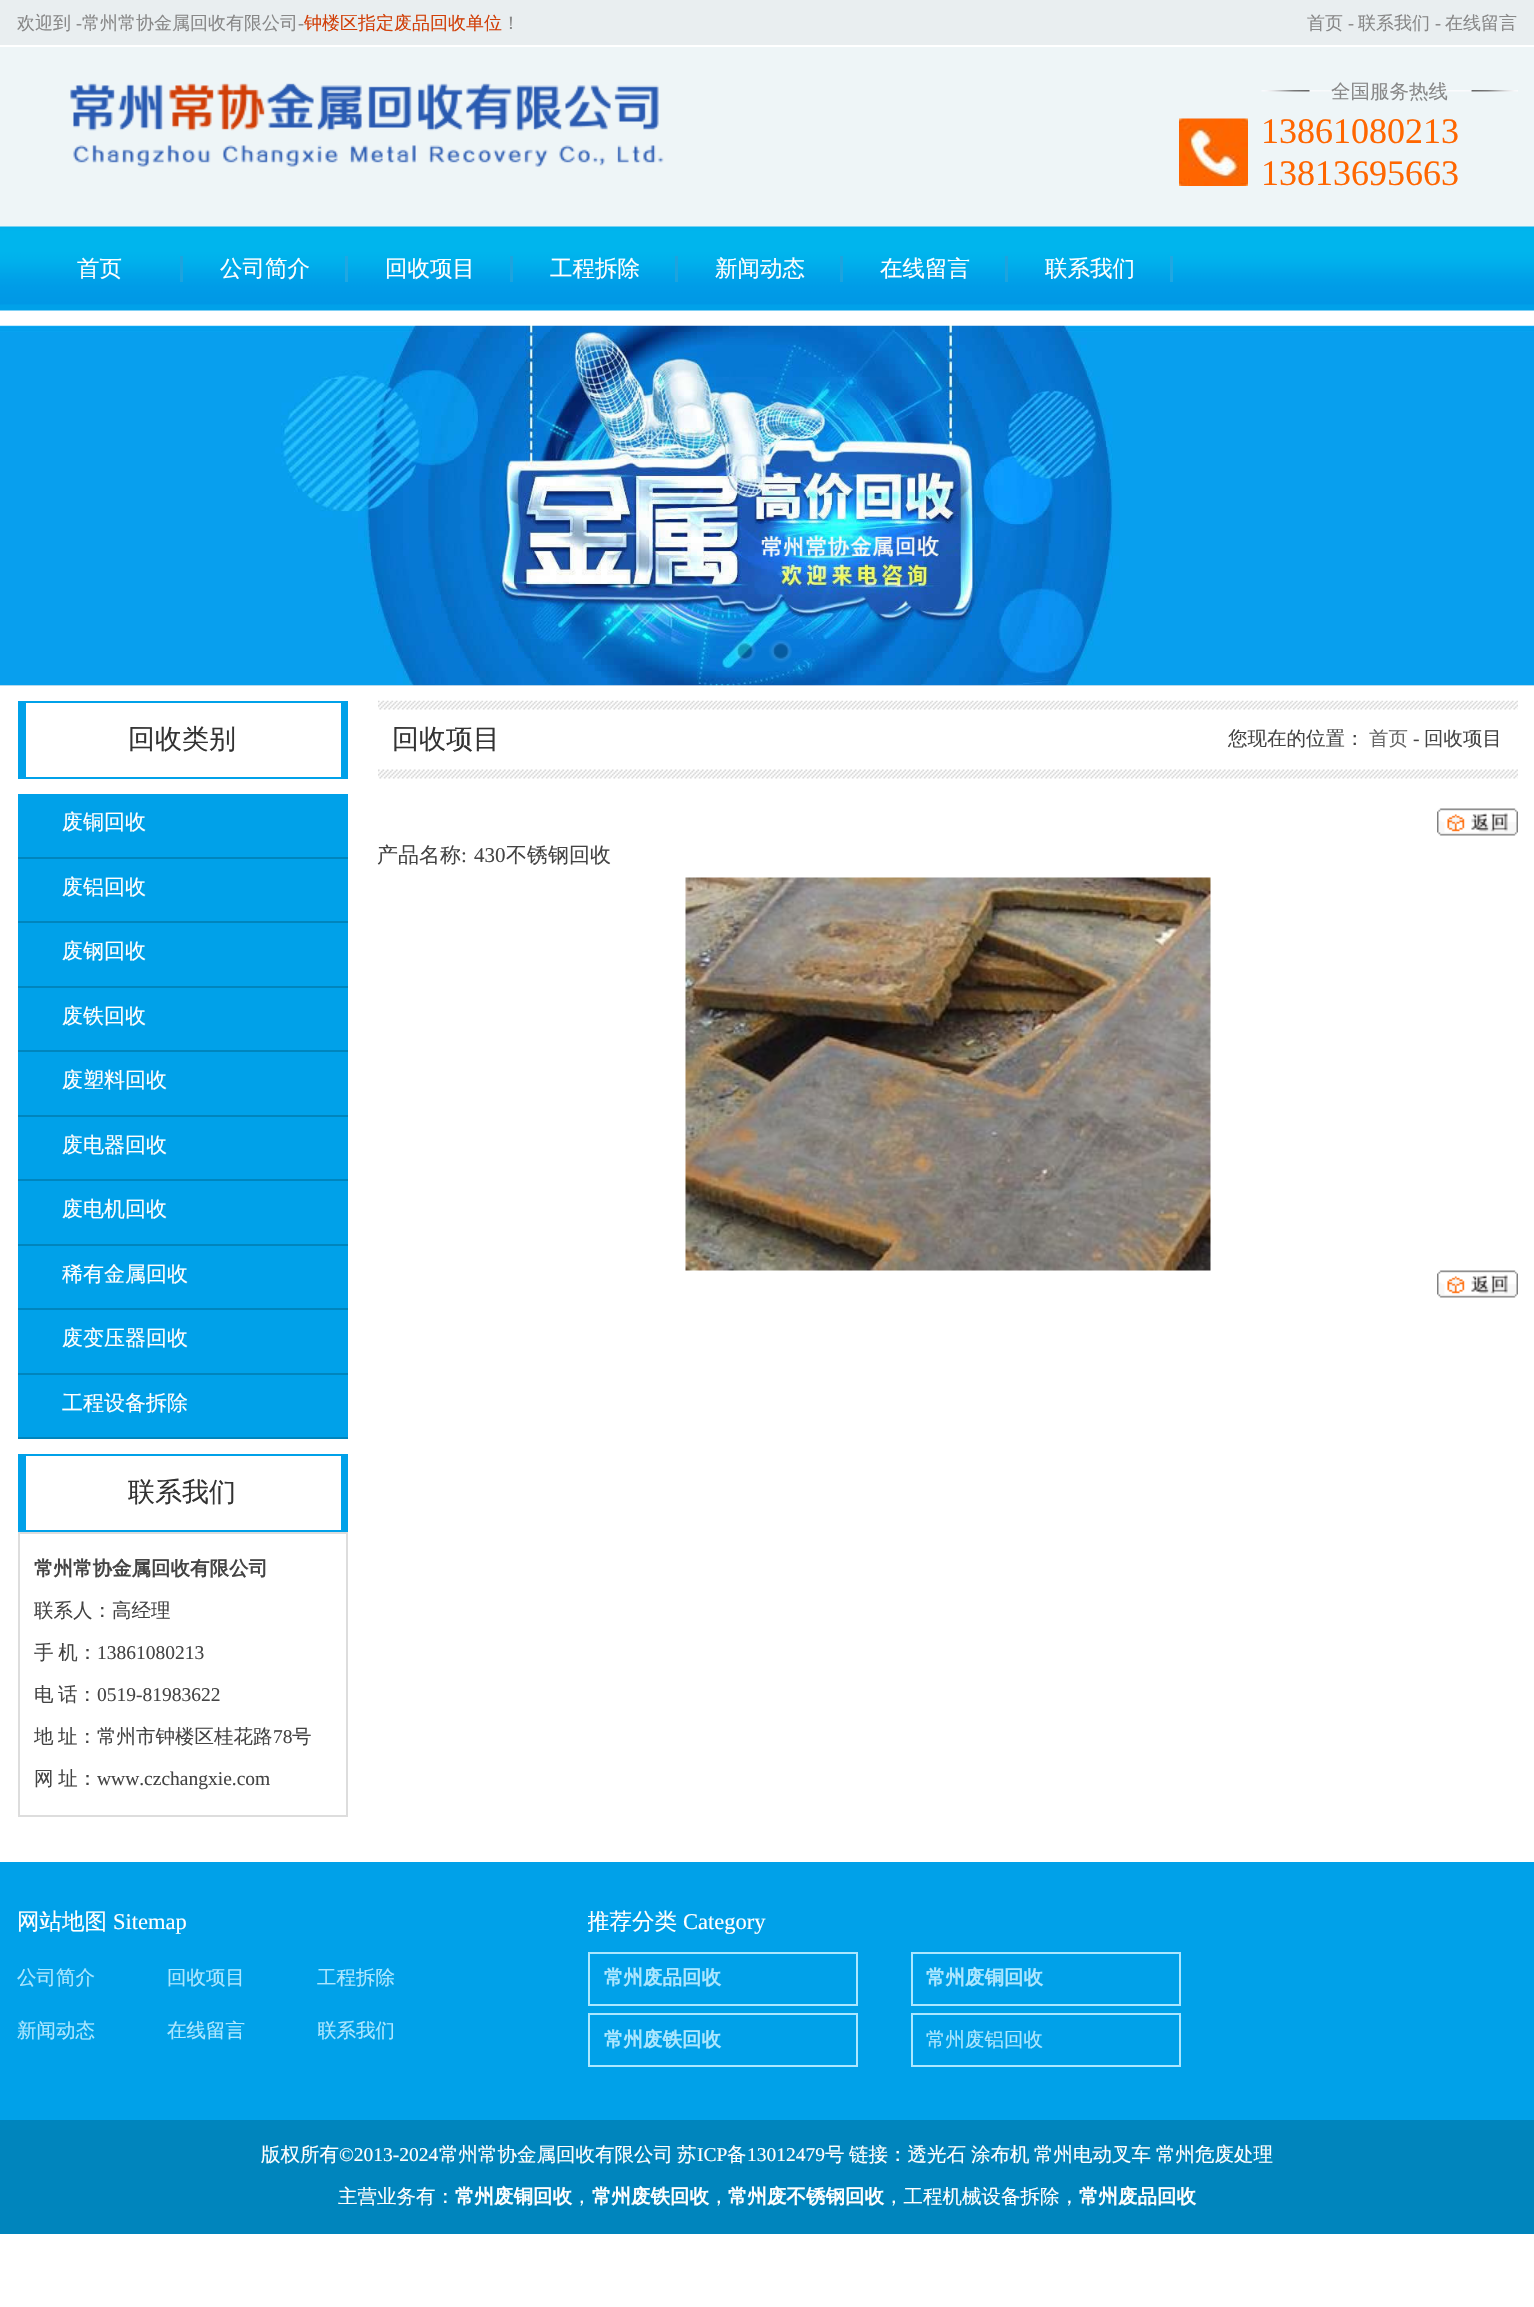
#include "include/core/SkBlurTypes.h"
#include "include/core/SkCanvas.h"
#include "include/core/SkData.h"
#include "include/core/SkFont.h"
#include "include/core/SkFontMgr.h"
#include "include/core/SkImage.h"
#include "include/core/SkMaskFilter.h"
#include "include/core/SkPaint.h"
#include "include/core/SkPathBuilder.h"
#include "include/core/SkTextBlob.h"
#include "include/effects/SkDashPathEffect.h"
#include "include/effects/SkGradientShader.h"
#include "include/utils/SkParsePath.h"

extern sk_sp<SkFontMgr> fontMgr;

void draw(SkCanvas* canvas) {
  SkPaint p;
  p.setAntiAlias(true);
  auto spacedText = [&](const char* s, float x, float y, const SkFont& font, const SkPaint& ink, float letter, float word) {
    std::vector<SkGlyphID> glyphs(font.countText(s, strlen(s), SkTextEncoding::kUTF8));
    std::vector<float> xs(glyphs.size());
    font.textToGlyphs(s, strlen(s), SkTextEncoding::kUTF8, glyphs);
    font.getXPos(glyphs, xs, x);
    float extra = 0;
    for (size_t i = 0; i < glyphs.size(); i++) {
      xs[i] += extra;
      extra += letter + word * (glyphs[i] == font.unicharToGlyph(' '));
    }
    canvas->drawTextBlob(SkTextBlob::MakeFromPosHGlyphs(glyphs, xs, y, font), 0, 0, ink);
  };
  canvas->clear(SK_ColorWHITE);
  p.setColor(SkColorSetRGB(233, 238, 240));
  canvas->drawRect(SkRect::MakeLTRB(0, 0, 1534, 45), p);
  p.setColor(SkColorSetRGB(238, 245, 247));
  canvas->drawRect(SkRect::MakeLTRB(0, 47, 1534, 227), p);
  canvas->drawImageRect(SkImages::DeferredFromEncodedData(SkData::MakeFromFileName("images/1.png")), SkRect::MakeLTRB(70, 83, 664, 167), SkSamplingOptions());
  canvas->drawImageRect(SkImages::DeferredFromEncodedData(SkData::MakeFromFileName("images/2.png")), SkRect::MakeLTRB(1179, 118, 1248, 186), SkSamplingOptions());
  canvas->drawImageRect(SkImages::DeferredFromEncodedData(SkData::MakeFromFileName("images/3.png")), SkRect::MakeLTRB(1261, 90, 1518, 92), SkSamplingOptions());
  canvas->drawImageRect(SkImages::DeferredFromEncodedData(SkData::MakeFromFileName("images/4.png")), SkRect::MakeLTRB(0, 226, 1534, 311), SkSamplingOptions());
  p.setColor(SkColorSetRGB(30, 163, 221));
  canvas->drawRect(SkRect::MakeLTRB(180, 256, 183, 282), p);
  p.setColor(SkColorSetRGB(33, 167, 225));
  canvas->drawRect(SkRect::MakeLTRB(345, 256, 348, 282), p);
  p.setColor(SkColorSetRGB(30, 163, 221));
  canvas->drawRect(SkRect::MakeLTRB(510, 256, 513, 282), p);
  canvas->drawRect(SkRect::MakeLTRB(675, 256, 678, 282), p);
  canvas->drawRect(SkRect::MakeLTRB(840, 256, 843, 282), p);
  canvas->drawRect(SkRect::MakeLTRB(1005, 256, 1008, 282), p);
  p.setColor(SkColorSetRGB(33, 167, 225));
  canvas->drawRect(SkRect::MakeLTRB(1170, 256, 1173, 282), p);
  p.setColor(SkColorSetRGB(238, 238, 238));
  canvas->drawRect(SkRect::MakeLTRB(0, 685, 1534, 686), p);
  canvas->drawImageRect(SkImages::DeferredFromEncodedData(SkData::MakeFromFileName("images/5.png")), SkRect::MakeLTRB(0, 325, 1534, 686), SkSamplingOptions());
  canvas->drawImageRect(SkImages::DeferredFromEncodedData(SkData::MakeFromFileName("images/6.png")), SkRect::MakeLTRB(733, 640, 756, 663), SkSamplingOptions());
  canvas->drawImageRect(SkImages::DeferredFromEncodedData(SkData::MakeFromFileName("images/7.png")), SkRect::MakeLTRB(769, 640, 792, 663), SkSamplingOptions());
  p.setColor(SkColorSetRGB(0, 161, 233));
  canvas->drawRect(SkRect::MakeLTRB(18, 701, 348, 703), p);
  canvas->drawRect(SkRect::MakeLTRB(341, 701, 348, 779), p);
  canvas->drawRect(SkRect::MakeLTRB(18, 777, 348, 779), p);
  canvas->drawRect(SkRect::MakeLTRB(18, 701, 26, 779), p);
  canvas->drawRect(SkRect::MakeLTRB(18, 794, 348, 1437), p);
  p.setColor(SkColorSetRGB(0, 133, 189));
  canvas->drawRect(SkRect::MakeLTRB(18, 857, 348, 859), p);
  canvas->drawRect(SkRect::MakeLTRB(18, 921, 348, 923), p);
  canvas->drawRect(SkRect::MakeLTRB(18, 986, 348, 988), p);
  canvas->drawRect(SkRect::MakeLTRB(18, 1050, 348, 1052), p);
  canvas->drawRect(SkRect::MakeLTRB(18, 1115, 348, 1117), p);
  canvas->drawRect(SkRect::MakeLTRB(18, 1179, 348, 1181), p);
  canvas->drawRect(SkRect::MakeLTRB(18, 1244, 348, 1246), p);
  canvas->drawRect(SkRect::MakeLTRB(18, 1308, 348, 1310), p);
  canvas->drawRect(SkRect::MakeLTRB(18, 1373, 348, 1375), p);
  canvas->drawRect(SkRect::MakeLTRB(18, 1437, 348, 1439), p);
  p.setColor(SkColorSetRGB(0, 161, 233));
  canvas->drawRect(SkRect::MakeLTRB(18, 1454, 348, 1456), p);
  canvas->drawRect(SkRect::MakeLTRB(341, 1454, 348, 1532), p);
  canvas->drawRect(SkRect::MakeLTRB(18, 1530, 348, 1532), p);
  canvas->drawRect(SkRect::MakeLTRB(18, 1454, 26, 1532), p);
  p.setStyle(SkPaint::kStroke_Style);
  p.setStrokeWidth(2);
  p.setColor(SkColorSetRGB(221, 221, 221));
  canvas->drawRect(SkRect::MakeLTRB(19, 1533, 347, 1816), p);
  canvas->drawImageRect(SkImages::DeferredFromEncodedData(SkData::MakeFromFileName("images/8.png")), SkRect::MakeLTRB(378, 700, 1518, 779), SkSamplingOptions());
  canvas->drawImageRect(SkImages::DeferredFromEncodedData(SkData::MakeFromFileName("images/9.png")), SkRect::MakeLTRB(1437, 808, 1518, 836), SkSamplingOptions());
  canvas->drawImageRect(SkImages::DeferredFromEncodedData(SkData::MakeFromFileName("images/10.png")), SkRect::MakeLTRB(685, 877, 1211, 1271), SkSamplingOptions());
  canvas->drawImageRect(SkImages::DeferredFromEncodedData(SkData::MakeFromFileName("images/9.png")), SkRect::MakeLTRB(1437, 1270, 1518, 1298), SkSamplingOptions());
  p.setStyle(SkPaint::kFill_Style);
  p.setColor(SkColorSetRGB(0, 133, 189));
  canvas->drawRect(SkRect::MakeLTRB(0, 2120, 1534, 2234), p);
  p.setColor(SkColorSetRGB(0, 161, 233));
  canvas->drawRect(SkRect::MakeLTRB(0, 1862, 1534, 2120), p);
  p.setStyle(SkPaint::kStroke_Style);
  p.setColor(SkColorSetRGB(172, 231, 255));
  canvas->drawRect(SkRect::MakeLTRB(589, 1953, 857, 2005), p);
  canvas->drawRect(SkRect::MakeLTRB(912, 1953, 1180, 2005), p);
  canvas->drawRect(SkRect::MakeLTRB(589, 2014, 857, 2066), p);
  canvas->drawRect(SkRect::MakeLTRB(912, 2014, 1180, 2066), p);
  SkFont font1(fontMgr->matchFamilyStyle("WenQuanYi Zen Hei", SkFontStyle(500, SkFontStyle::kNormal_Width, SkFontStyle::kUpright_Slant)), 18);
  font1.setSubpixel(true);
  p.setStyle(SkPaint::kFill_Style);
  p.setColor(SkColorSetRGB(136, 136, 136));
  canvas->drawString("欢迎到", 17, 29, font1, p);
  SkFont font2(fontMgr->matchFamilyStyle("Liberation Serif", SkFontStyle::Normal()), 18);
  font2.setSubpixel(true);
  canvas->drawString("-", 76, 29, font2, p);
  canvas->drawString("常州常协金属回收有限公司", 82, 29, font1, p);
  canvas->drawString("-", 298, 29, font2, p);
  p.setColor(SkColorSetRGB(209, 63, 8));
  canvas->drawString("钟楼区指定废品回收单位", 304, 29, font1, p);
  p.setColor(SkColorSetRGB(136, 136, 136));
  canvas->drawString("！", 502, 29, font1, p);
  canvas->drawString("首页", 1307, 29, font1, p);
  canvas->drawString("-", 1348, 29, font2, p);
  canvas->drawString("联系我们", 1358, 29, font1, p);
  canvas->drawString("-", 1435, 29, font2, p);
  canvas->drawString("在线留言", 1445, 29, font1, p);
  SkFont font3(fontMgr->matchFamilyStyle("WenQuanYi Zen Hei", SkFontStyle(500, SkFontStyle::kNormal_Width, SkFontStyle::kUpright_Slant)), 19.5f);
  font3.setSubpixel(true);
  canvas->drawString("全国服务热线", 1331, 98, font3, p);
  SkFont font4(fontMgr->matchFamilyStyle("Liberation Serif", SkFontStyle::Normal()), 36);
  font4.setSubpixel(true);
  p.setColor(SkColorSetRGB(255, 102, 0));
  canvas->drawString("13861080213", 1261, 143, font4, p);
  canvas->drawString("13813695663", 1261, 185, font4, p);
  SkFont font5(fontMgr->matchFamilyStyle("WenQuanYi Zen Hei", SkFontStyle(500, SkFontStyle::kNormal_Width, SkFontStyle::kUpright_Slant)), 22.5f);
  font5.setSubpixel(true);
  p.setColor(SK_ColorWHITE);
  canvas->drawString("首页", 77, 276, font5, p);
  canvas->drawString("公司简介", 220, 276, font5, p);
  canvas->drawString("回收项目", 385, 276, font5, p);
  canvas->drawString("工程拆除", 550, 276, font5, p);
  canvas->drawString("新闻动态", 715, 276, font5, p);
  canvas->drawString("在线留言", 880, 276, font5, p);
  canvas->drawString("联系我们", 1045, 276, font5, p);
  SkFont font6(fontMgr->matchFamilyStyle("WenQuanYi Zen Hei", SkFontStyle(500, SkFontStyle::kNormal_Width, SkFontStyle::kUpright_Slant)), 27);
  font6.setSubpixel(true);
  p.setColor(SkColorSetRGB(51, 51, 51));
  canvas->drawString("回收类别", 128, 748, font6, p);
  SkFont font7(fontMgr->matchFamilyStyle("WenQuanYi Zen Hei", SkFontStyle(500, SkFontStyle::kNormal_Width, SkFontStyle::kUpright_Slant)), 21);
  font7.setSubpixel(true);
  p.setColor(SK_ColorWHITE);
  canvas->drawString("废铜回收", 62, 829, font7, p);
  canvas->drawString("废铝回收", 62, 894, font7, p);
  canvas->drawString("废钢回收", 62, 958, font7, p);
  canvas->drawString("废铁回收", 62, 1023, font7, p);
  canvas->drawString("废塑料回收", 62, 1087, font7, p);
  canvas->drawString("废电器回收", 62, 1152, font7, p);
  canvas->drawString("废电机回收", 62, 1216, font7, p);
  canvas->drawString("稀有金属回收", 62, 1281, font7, p);
  canvas->drawString("废变压器回收", 62, 1345, font7, p);
  canvas->drawString("工程设备拆除", 62, 1410, font7, p);
  p.setColor(SkColorSetRGB(51, 51, 51));
  canvas->drawString("联系我们", 128, 1501, font6, p);
  SkFont font8(fontMgr->matchFamilyStyle("WenQuanYi Zen Hei", SkFontStyle::Bold()), 19.5f);
  font8.setSubpixel(true);
  p.setColor(SkColorSetRGB(68, 68, 68));
  canvas->drawString("常州常协金属回收有限公司", 34, 1575, font8, p);
  canvas->drawString("联系人：高经理", 34, 1617, font3, p);
  spacedText("手 机：", 34, 1659, font3, p, 0, -1);
  SkFont font9(fontMgr->matchFamilyStyle("Liberation Serif", SkFontStyle::Normal()), 19.5f);
  font9.setSubpixel(true);
  canvas->drawString("13861080213", 97, 1659, font9, p);
  canvas->drawString("电", 34, 1701, font3, p);
  canvas->drawString("话：", 58, 1701, font3, p);
  canvas->drawString("0519-81983622", 97, 1701, font9, p);
  canvas->drawString("地", 34, 1743, font3, p);
  canvas->drawString("址：常州市钟楼区桂花路", 58, 1743, font3, p);
  canvas->drawString("78", 273, 1743, font9, p);
  canvas->drawString("号", 292, 1743, font3, p);
  spacedText("网 址：", 34, 1785, font3, p, 0, -1);
  canvas->drawString("www.czchangxie.com", 97, 1785, font9, p);
  p.setColor(SkColorSetRGB(51, 51, 51));
  canvas->drawString("回收项目", 392, 748, font6, p);
  p.setColor(SkColorSetRGB(68, 68, 68));
  canvas->drawString("您现在的位置：", 1228, 745, font3, p);
  p.setColor(SkColorSetRGB(102, 102, 102));
  canvas->drawString("首页", 1369, 745, font3, p);
  p.setColor(SkColorSetRGB(68, 68, 68));
  canvas->drawString("-", 1413, 745, font9, p);
  canvas->drawString("回收项目", 1424, 745, font3, p);
  canvas->drawString("产品名称", 377, 862, font7, p);
  SkFont font10(fontMgr->matchFamilyStyle("Liberation Serif", SkFontStyle::Normal()), 21);
  font10.setSubpixel(true);
  canvas->drawString(":", 461, 862, font10, p);
  canvas->drawString("430", 474, 862, font10, p);
  canvas->drawString("不锈钢回收", 506, 862, font7, p);
  p.setColor(SK_ColorWHITE);
  canvas->drawString("网站地图", 17, 1929, font5, p);
  SkFont font11(fontMgr->matchFamilyStyle("Liberation Serif", SkFontStyle::Normal()), 22.5f);
  font11.setSubpixel(true);
  canvas->drawString("Sitemap", 113, 1929, font11, p);
  p.setColor(SkColorSetRGB(172, 231, 255));
  canvas->drawString("公司简介", 17, 1984, font3, p);
  canvas->drawString("回收项目", 167, 1984, font3, p);
  canvas->drawString("工程拆除", 317, 1984, font3, p);
  canvas->drawString("新闻动态", 17, 2037, font3, p);
  canvas->drawString("在线留言", 167, 2037, font3, p);
  canvas->save();
  canvas->clipRect(SkRect::MakeLTRB(318, 2004, 468, 2057));
  canvas->drawString("联系我们", 317, 2037, font3, p);
  canvas->restore();
  canvas->save();
  canvas->clipRect(SkRect::MakeLTRB(588, 1907, 1233, 1937));
  p.setColor(SK_ColorWHITE);
  canvas->drawString("推荐分类", 587, 1929, font5, p);
  canvas->restore();
  canvas->drawString("Category", 683, 1929, font11, p);
  p.setColor(SkColorSetRGB(172, 231, 255));
  canvas->drawString("常州废品回收", 604, 1984, font8, p);
  canvas->drawString("常州废铜回收", 926, 1984, font8, p);
  canvas->drawString("常州废铁回收", 604, 2046, font8, p);
  canvas->drawString("常州废铝回收", 926, 2046, font3, p);
  p.setColor(SK_ColorWHITE);
  canvas->drawString("版权所有", 261, 2161, font3, p);
  canvas->drawString("©2013-2024", 339, 2161, font9, p);
  canvas->drawString("常州常协金属回收有限公司", 439, 2161, font3, p);
  canvas->drawString("苏", 677, 2161, font3, p);
  canvas->drawString("ICP", 697, 2161, font9, p);
  canvas->drawString("备", 727, 2161, font3, p);
  canvas->drawString("13012479", 747, 2161, font9, p);
  canvas->drawString("号", 825, 2161, font3, p);
  canvas->drawString("链接：透光石", 849, 2161, font3, p);
  canvas->drawString("涂布机", 971, 2161, font3, p);
  canvas->drawString("常州电动叉车", 1034, 2161, font3, p);
  canvas->drawString("常州危废处理", 1156, 2161, font3, p);
  canvas->drawString("主营业务有：", 338, 2203, font3, p);
  canvas->drawString("常州废铜回收", 455, 2203, font8, p);
  canvas->drawString("，", 572, 2203, font3, p);
  canvas->drawString("常州废铁回收", 592, 2203, font8, p);
  canvas->drawString("，", 709, 2203, font3, p);
  canvas->drawString("常州废不锈钢回收", 728, 2203, font8, p);
  canvas->drawString("，工程机械设备拆除，", 884, 2203, font3, p);
  canvas->drawString("常州废品回收", 1079, 2203, font8, p);
}
